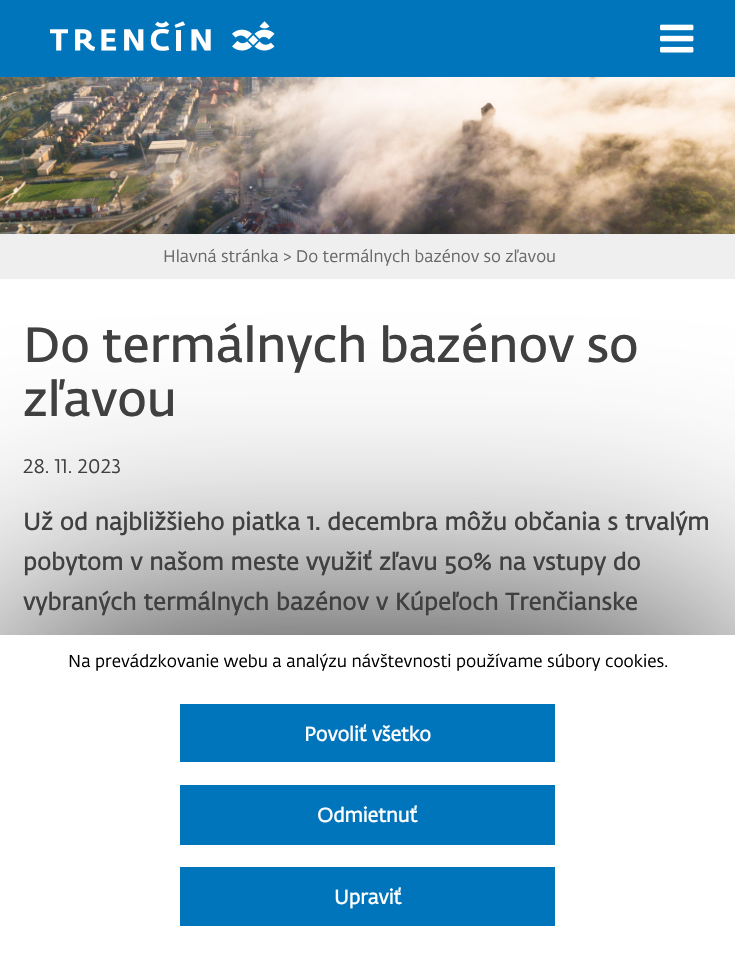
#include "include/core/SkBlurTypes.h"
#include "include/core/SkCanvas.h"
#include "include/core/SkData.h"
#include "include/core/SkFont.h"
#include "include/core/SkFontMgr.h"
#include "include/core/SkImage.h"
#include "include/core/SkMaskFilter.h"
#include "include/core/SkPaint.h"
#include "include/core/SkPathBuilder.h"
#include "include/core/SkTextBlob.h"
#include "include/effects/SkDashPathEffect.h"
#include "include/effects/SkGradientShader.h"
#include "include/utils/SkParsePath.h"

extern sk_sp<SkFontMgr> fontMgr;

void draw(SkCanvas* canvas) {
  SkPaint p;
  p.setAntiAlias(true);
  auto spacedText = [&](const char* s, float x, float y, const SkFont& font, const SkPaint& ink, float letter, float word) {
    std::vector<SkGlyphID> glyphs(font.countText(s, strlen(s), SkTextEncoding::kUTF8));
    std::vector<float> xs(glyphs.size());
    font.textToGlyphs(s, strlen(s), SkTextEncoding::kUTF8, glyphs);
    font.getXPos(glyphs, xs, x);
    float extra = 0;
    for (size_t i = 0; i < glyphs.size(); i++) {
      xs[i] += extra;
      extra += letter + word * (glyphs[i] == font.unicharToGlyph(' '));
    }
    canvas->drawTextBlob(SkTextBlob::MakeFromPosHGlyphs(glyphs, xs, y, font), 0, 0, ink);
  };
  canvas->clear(SK_ColorWHITE);
  p.setColor(SkColorSetRGB(0, 117, 187));
  canvas->drawRect(SkRect::MakeLTRB(0, 0, 735, 77), p);
  canvas->drawImageRect(SkImages::DeferredFromEncodedData(SkData::MakeFromFileName("images/1.png")), SkRect::MakeLTRB(50, 21, 275, 51), SkSamplingOptions());
  canvas->drawImageRect(SkImages::DeferredFromEncodedData(SkData::MakeFromFileName("images/2.png")), SkRect::MakeLTRB(660, 24, 694, 53), SkSamplingOptions());
  canvas->drawImageRect(SkImages::DeferredFromEncodedData(SkData::MakeFromFileName("images/3.png")), SkRect::MakeLTRB(0, 77, 735, 234), SkSamplingOptions());
  p.setColor(SkColorSetRGB(239, 239, 239));
  canvas->drawRect(SkRect::MakeLTRB(0, 234, 735, 279), p);
  p.setColor(SkColorSetRGB(41, 41, 42));
  p.setMaskFilter(SkMaskFilter::MakeBlur(kNormal_SkBlurStyle, 750));
  canvas->drawRect(SkRect::MakeLTRB(0, 620, 735, 945), p);
  p.setMaskFilter(nullptr);
  p.setColor(SK_ColorWHITE);
  canvas->drawRect(SkRect::MakeLTRB(0, 635, 735, 959), p);
  p.setColor(SkColorSetRGB(0, 117, 187));
  canvas->drawRect(SkRect::MakeLTRB(180, 704, 555, 762), p);
  canvas->drawRect(SkRect::MakeLTRB(180, 785, 555, 845), p);
  canvas->drawRect(SkRect::MakeLTRB(180, 867, 555, 926), p);
  SkFont font1(fontMgr->matchFamilyStyle("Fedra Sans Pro", SkFontStyle::Normal()), 16.6f);
  font1.setSubpixel(true);
  p.setColor(SkColorSetRGB(104, 104, 104));
  canvas->drawString("Hlavná stránka > Do termálnych bazénov so zľavou", 163, 262, font1, p);
  SkFont font2(fontMgr->matchFamilyStyle("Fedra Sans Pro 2", SkFontStyle::Normal()), 48.75f);
  font2.setSubpixel(true);
  p.setColor(SkColorSetRGB(64, 64, 64));
  canvas->drawString("Do termálnych bazénov so", 23, 362, font2, p);
  canvas->drawString("zľavou", 23, 416, font2, p);
  SkFont font3(fontMgr->matchFamilyStyle("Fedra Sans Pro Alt", SkFontStyle::Normal()), 19.5f);
  font3.setSubpixel(true);
  canvas->drawString("28. 11. 2023", 23, 473, font3, p);
  SkFont font4(fontMgr->matchFamilyStyle("Fedra Sans Pro", SkFontStyle::Bold()), 23.4f);
  font4.setSubpixel(true);
  spacedText("Už od najbližšieho piatka 1. decembra môžu občania s trvalým", 23, 530, font4, p, 0.23f, 0.5f);
  spacedText("pobytom v našom meste využiť zľavu 50% na vstupy do", 23, 570, font4, p, 0.23f, 0.5f);
  spacedText("vybraných termálnych bazénov v Kúpeľoch Trenčianske", 23, 610, font4, p, 0.23f, 0.5f);
  SkFont font5(fontMgr->matchFamilyStyle("Fedra Sans Pro", SkFontStyle::Normal()), 17.05f);
  font5.setSubpixel(true);
  p.setColor(SK_ColorBLACK);
  canvas->drawString("Na prevádzkovanie webu a analýzu návštevnosti používame súbory cookies.", 68, 667, font5, p);
  SkFont font6(fontMgr->matchFamilyStyle("Fedra Sans Pro", SkFontStyle::Bold()), 19.5f);
  font6.setSubpixel(true);
  p.setColor(SK_ColorWHITE);
  canvas->drawString("Povoliť všetko", 304, 741, font6, p);
  canvas->drawString("Odmietnuť", 317, 822, font6, p);
  canvas->drawString("Upraviť", 334, 904, font6, p);
}
